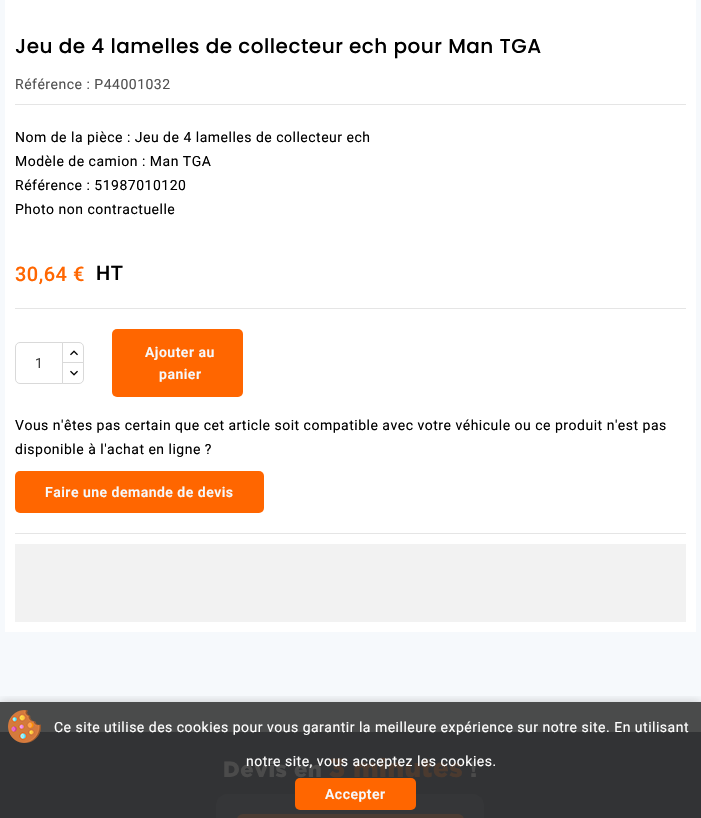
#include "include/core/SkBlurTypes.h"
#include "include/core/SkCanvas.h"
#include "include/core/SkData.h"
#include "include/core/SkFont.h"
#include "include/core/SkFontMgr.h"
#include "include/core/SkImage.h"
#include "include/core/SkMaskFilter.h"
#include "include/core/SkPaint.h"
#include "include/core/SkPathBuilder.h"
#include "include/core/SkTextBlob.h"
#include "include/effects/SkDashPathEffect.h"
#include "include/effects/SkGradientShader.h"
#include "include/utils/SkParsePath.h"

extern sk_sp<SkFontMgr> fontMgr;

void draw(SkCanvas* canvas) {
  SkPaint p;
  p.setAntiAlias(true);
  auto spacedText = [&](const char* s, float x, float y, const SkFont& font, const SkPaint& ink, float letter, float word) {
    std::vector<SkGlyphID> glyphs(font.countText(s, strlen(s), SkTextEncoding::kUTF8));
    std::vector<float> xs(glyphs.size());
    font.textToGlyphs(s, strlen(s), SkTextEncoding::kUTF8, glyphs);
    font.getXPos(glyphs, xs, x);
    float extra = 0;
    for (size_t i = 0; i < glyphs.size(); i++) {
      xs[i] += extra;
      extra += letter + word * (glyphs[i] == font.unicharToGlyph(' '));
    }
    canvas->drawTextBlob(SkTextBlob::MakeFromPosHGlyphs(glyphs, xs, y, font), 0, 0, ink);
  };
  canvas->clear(SkColorSetRGB(246, 249, 252));
  p.setColor(SkColorSetRGB(74, 75, 75));
  canvas->drawRect(SkRect::MakeLTRB(0, 702, 701, 732), p);
  p.setColor(SK_ColorWHITE);
  canvas->drawRect(SkRect::MakeLTRB(5, 0, 696, 632), p);
  p.setColor(SkColorSetRGB(229, 229, 229));
  canvas->drawRect(SkRect::MakeLTRB(15, 104, 686, 105), p);
  canvas->drawRect(SkRect::MakeLTRB(15, 308, 686, 309), p);
  canvas->drawRect(SkRect::MakeLTRB(15, 533, 686, 534), p);
  p.setStyle(SkPaint::kStroke_Style);
  p.setStrokeWidth(1);
  p.setColor(SkColorSetRGB(217, 217, 217));
  canvas->drawPath(SkPathBuilder().moveTo(62.5f, 342.5f).lineTo(79, 342.5f).cubicTo(81.5f, 342.5f, 83.5f, 344.5f, 83.5f, 347).lineTo(83.5f, 363.5f).lineTo(62.5f, 363.5f).close().detach(), p);
  p.setStyle(SkPaint::kFill_Style);
  p.setColor(SK_ColorWHITE);
  canvas->drawPath(SkPathBuilder().moveTo(62.5f, 362.5f).lineTo(83.5f, 362.5f).lineTo(83.5f, 379).cubicTo(83.5f, 381.5f, 81.5f, 383.5f, 79, 383.5f).lineTo(62.5f, 383.5f).close().detach(), p);
  p.setStyle(SkPaint::kStroke_Style);
  p.setColor(SkColorSetRGB(217, 217, 217));
  canvas->drawPath(SkPathBuilder().moveTo(62.5f, 362.5f).lineTo(83.5f, 362.5f).lineTo(83.5f, 379).cubicTo(83.5f, 381.5f, 81.5f, 383.5f, 79, 383.5f).lineTo(62.5f, 383.5f).close().detach(), p);
  p.setStyle(SkPaint::kFill_Style);
  p.setColor(SK_ColorWHITE);
  canvas->drawPath(SkPathBuilder().moveTo(20, 342.5f).lineTo(62.5f, 342.5f).lineTo(62.5f, 383.5f).lineTo(20, 383.5f).cubicTo(17.5f, 383.5f, 15.5f, 381.5f, 15.5f, 379).lineTo(15.5f, 347).cubicTo(15.5f, 344.5f, 17.5f, 342.5f, 20, 342.5f).close().detach(), p);
  p.setStyle(SkPaint::kStroke_Style);
  p.setColor(SkColorSetRGB(217, 217, 217));
  canvas->drawPath(SkPathBuilder().moveTo(20, 342.5f).lineTo(62.5f, 342.5f).lineTo(62.5f, 383.5f).lineTo(20, 383.5f).cubicTo(17.5f, 383.5f, 15.5f, 381.5f, 15.5f, 379).lineTo(15.5f, 347).cubicTo(15.5f, 344.5f, 17.5f, 342.5f, 20, 342.5f).close().detach(), p);
  canvas->drawImageRect(SkImages::DeferredFromEncodedData(SkData::MakeFromFileName("images/1.png")), SkRect::MakeLTRB(70, 350, 78, 356), SkSamplingOptions());
  canvas->drawImageRect(SkImages::DeferredFromEncodedData(SkData::MakeFromFileName("images/2.png")), SkRect::MakeLTRB(70, 370, 78, 376), SkSamplingOptions());
  p.setStyle(SkPaint::kFill_Style);
  p.setColor(SkColorSetRGB(255, 102, 0));
  canvas->drawRoundRect(SkRect::MakeLTRB(112, 329, 243, 397), 5, 5, p);
  canvas->drawRoundRect(SkRect::MakeLTRB(15, 471, 264, 513), 5, 5, p);
  p.setColor(SkColorSetRGB(242, 242, 242));
  canvas->drawRect(SkRect::MakeLTRB(15, 544, 686, 622), p);
  p.setColor(SkColorSetRGB(50, 51, 53));
  canvas->drawRect(SkRect::MakeLTRB(0, 732, 701, 818), p);
  p.setColor(SkColorSetRGB(75, 58, 47));
  canvas->drawRoundRect(SkRect::MakeLTRB(237, 814, 464, 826), 8, 8, p);
  p.setColor(SkColorSetARGB(31, 75, 75, 75));
  canvas->drawRoundRect(SkRect::MakeLTRB(216, 794, 484, 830), 12, 12, p);
  canvas->save();
  canvas->clipRect(SkRect::MakeLTRB(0, 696, 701, 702));
  p.setColor(SkColorSetARGB(51, 0, 0, 0));
  p.setMaskFilter(SkMaskFilter::MakeBlur(kNormal_SkBlurStyle, 5));
  canvas->drawRect(SkRect::MakeLTRB(0, 702, 701, 818), p);
  p.setMaskFilter(nullptr);
  canvas->restore();
  canvas->drawImageRect(SkImages::DeferredFromEncodedData(SkData::MakeFromFileName("images/3.png")), SkRect::MakeLTRB(8, 710, 41, 743), SkSamplingOptions());
  p.setColor(SkColorSetRGB(255, 102, 0));
  canvas->drawRoundRect(SkRect::MakeLTRB(295, 778, 416, 810), 5, 5, p);
  SkFont font1(fontMgr->matchFamilyStyle("Poppins", SkFontStyle(500, SkFontStyle::kNormal_Width, SkFontStyle::kUpright_Slant)), 20);
  font1.setSubpixel(true);
  p.setColor(SK_ColorBLACK);
  spacedText("Jeu de 4 lamelles de collecteur ech pour Man TGA", 15, 53, font1, p, 0.5f, 0);
  SkFont font2(fontMgr->matchFamilyStyle("Roboto", SkFontStyle::Normal()), 14);
  font2.setSubpixel(true);
  p.setColor(SkColorSetRGB(82, 82, 82));
  spacedText("Référence : P44001032", 15, 89, font2, p, 0.5f, 0);
  p.setColor(SK_ColorBLACK);
  spacedText("Nom de la pièce : Jeu de 4 lamelles de collecteur ech", 15, 142, font2, p, 0.5f, 0);
  spacedText("Modèle de camion : Man TGA", 15, 166, font2, p, 0.5f, 0);
  spacedText("Référence : 51987010120", 15, 190, font2, p, 0.5f, 0);
  spacedText("Photo non contractuelle", 15, 214, font2, p, 0.5f, 0);
  SkFont font3(fontMgr->matchFamilyStyle("Roboto", SkFontStyle(500, SkFontStyle::kNormal_Width, SkFontStyle::kUpright_Slant)), 20);
  font3.setSubpixel(true);
  p.setColor(SkColorSetRGB(255, 102, 0));
  spacedText("30,64 €", 15, 281, font3, p, 0.5f, 0);
  p.setColor(SK_ColorBLACK);
  spacedText("HT", 96, 280, font3, p, 0.5f, 0);
  p.setColor(SkColorSetRGB(65, 65, 65));
  canvas->drawString("1", 35, 368, font2, p);
  SkFont font4(fontMgr->matchFamilyStyle("Roboto", SkFontStyle(600, SkFontStyle::kNormal_Width, SkFontStyle::kUpright_Slant)), 14);
  font4.setSubpixel(true);
  p.setColor(SkColorSetRGB(246, 249, 252));
  spacedText("Ajouter au", 145, 357, font4, p, 0.5f, 0);
  spacedText("panier", 159, 379, font4, p, 0.5f, 0);
  p.setColor(SK_ColorBLACK);
  spacedText("Vous n'êtes pas certain que cet article soit compatible avec votre véhicule ou ce produit n'est pas", 15, 430, font2, p, 0.5f, 0);
  spacedText("disponible à l'achat en ligne ?", 15, 454, font2, p, 0.5f, 0);
  p.setColor(SkColorSetRGB(246, 249, 252));
  spacedText("Faire une demande de devis", 45, 497, font4, p, 0.5f, 0);
  p.setColor(SK_ColorWHITE);
  spacedText("Ce site utilise des cookies pour vous garantir la meilleure expérience sur notre site. En utilisant", 54, 732, font2, p, 0.5f, 0);
  p.setColor(SkColorSetRGB(246, 249, 252));
  spacedText("Accepter", 325, 799, font4, p, 0.5f, 0);
  SkFont font5(fontMgr->matchFamilyStyle("Gotham", SkFontStyle(900, SkFontStyle::kNormal_Width, SkFontStyle::kUpright_Slant)), 22);
  font5.setSubpixel(true);
  p.setColor(SkColorSetRGB(75, 75, 75));
  spacedText("Devis en", 223, 777, font5, p, 0.5f, 0);
  SkFont font6(fontMgr->matchFamilyStyle("Gotham", SkFontStyle(900, SkFontStyle::kNormal_Width, SkFontStyle::kUpright_Slant)), 26);
  font6.setSubpixel(true);
  p.setColor(SkColorSetRGB(75, 58, 47));
  spacedText("3 minutes", 329, 777, font6, p, 0.5f, 0);
  p.setColor(SkColorSetRGB(75, 75, 75));
  spacedText("!", 470, 777, font5, p, 0.5f, 0);
  p.setColor(SK_ColorWHITE);
  spacedText("notre site, vous acceptez les cookies.", 246, 766, font2, p, 0.5f, 0);
}
